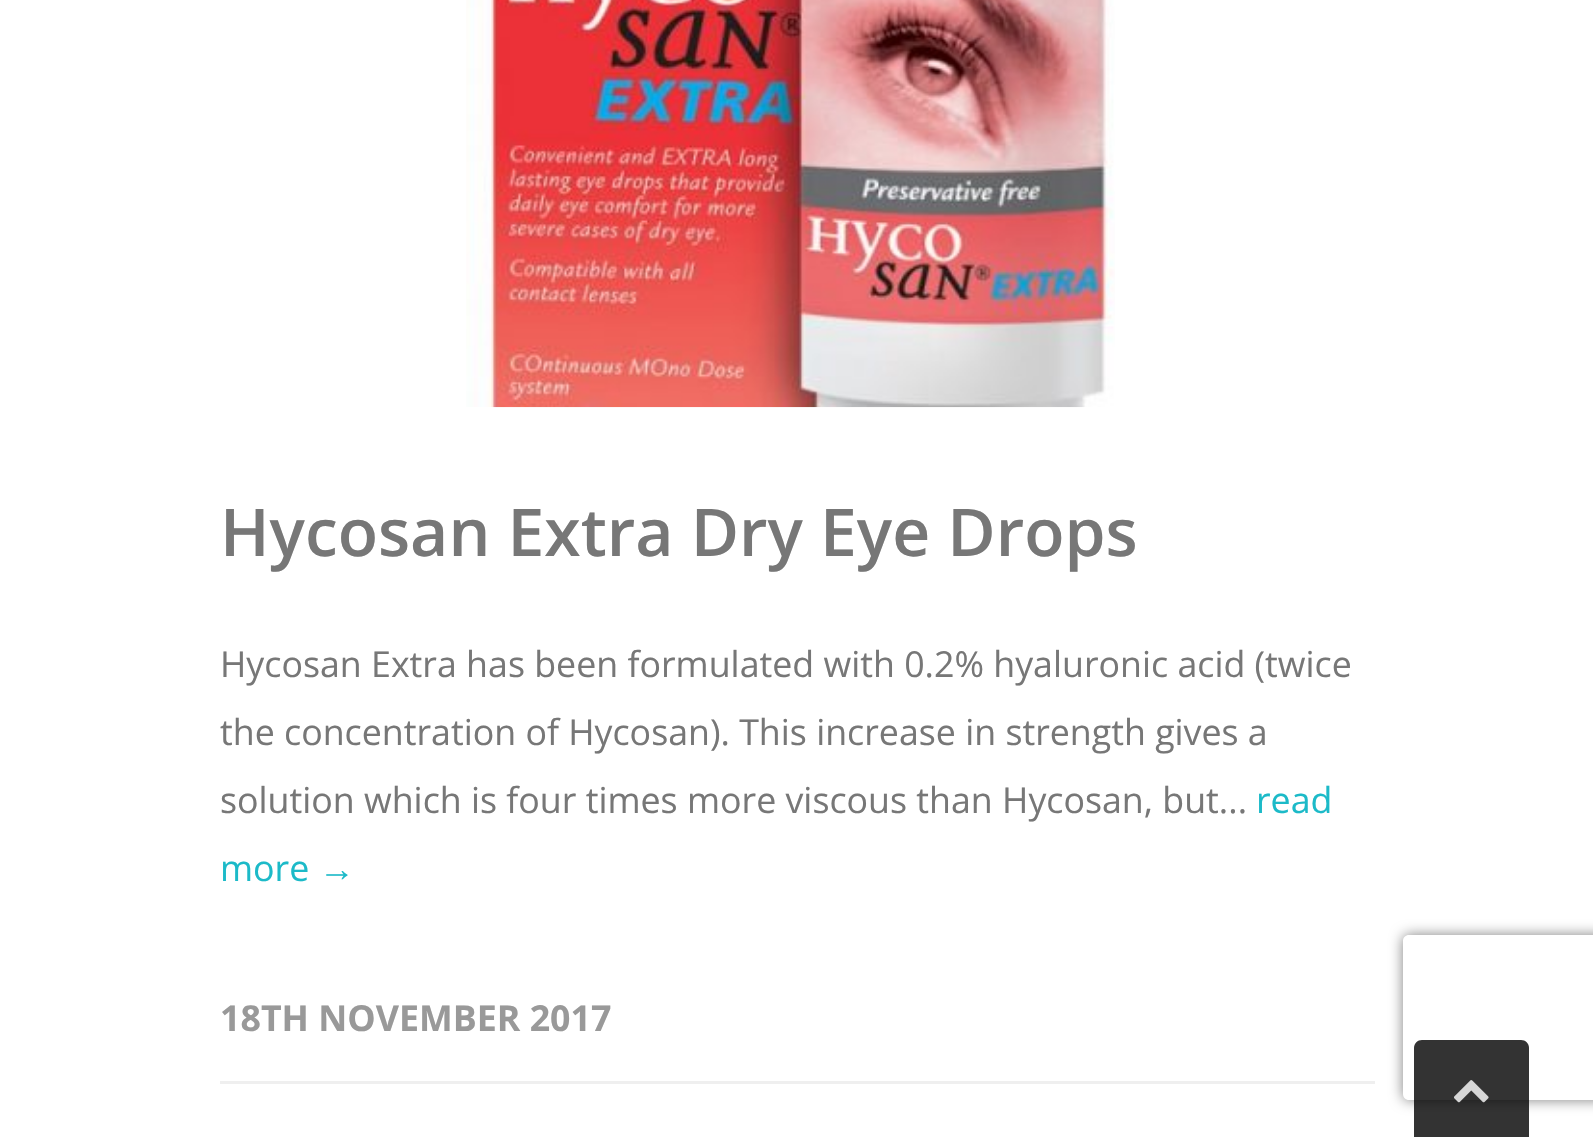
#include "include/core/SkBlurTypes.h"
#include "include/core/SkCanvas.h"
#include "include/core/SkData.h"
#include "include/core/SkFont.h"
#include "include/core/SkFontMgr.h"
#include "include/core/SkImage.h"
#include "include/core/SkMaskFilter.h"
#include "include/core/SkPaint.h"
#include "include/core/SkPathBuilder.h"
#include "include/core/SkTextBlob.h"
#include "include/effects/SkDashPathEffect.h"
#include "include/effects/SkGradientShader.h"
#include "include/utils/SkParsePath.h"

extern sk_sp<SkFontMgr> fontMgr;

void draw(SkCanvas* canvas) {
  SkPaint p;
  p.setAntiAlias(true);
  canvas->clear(SK_ColorWHITE);
  canvas->drawImageRect(SkImages::DeferredFromEncodedData(SkData::MakeFromFileName("images/1.png")), SkRect::MakeLTRB(466, 0, 1115, 408), SkSamplingOptions());
  p.setColor(SkColorSetRGB(239, 239, 239));
  canvas->drawRect(SkRect::MakeLTRB(220, 1081, 1375, 1084), p);
  canvas->save();
  canvas->clipPath(SkPathBuilder(SkPathFillType::kEvenOdd).moveTo(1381, 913).lineTo(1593, 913).lineTo(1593, 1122).lineTo(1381, 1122).close().moveTo(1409, 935).lineTo(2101, 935).cubicTo(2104.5f, 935, 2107, 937.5f, 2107, 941).lineTo(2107, 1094).cubicTo(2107, 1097.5f, 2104.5f, 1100, 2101, 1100).lineTo(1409, 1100).cubicTo(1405.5f, 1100, 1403, 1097.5f, 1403, 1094).lineTo(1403, 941).cubicTo(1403, 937.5f, 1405.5f, 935, 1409, 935).close().detach(), true);
  p.setColor(SkColorSetRGB(128, 128, 128));
  p.setMaskFilter(SkMaskFilter::MakeBlur(kNormal_SkBlurStyle, 7));
  canvas->drawRoundRect(SkRect::MakeLTRB(1403, 935, 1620, 1100), 6, 6, p);
  p.setMaskFilter(nullptr);
  canvas->restore();
  p.setColor(SkColorSetARGB(204, 0, 0, 0));
  canvas->drawPath(SkPathBuilder().moveTo(1422, 1040).lineTo(1521, 1040).cubicTo(1525.5f, 1040, 1529, 1043.5f, 1529, 1048).lineTo(1529, 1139).lineTo(1414, 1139).lineTo(1414, 1048).cubicTo(1414, 1043.5f, 1417.5f, 1040, 1422, 1040).close().detach(), p);
  canvas->drawImageRect(SkImages::DeferredFromEncodedData(SkData::MakeFromFileName("images/2.png")), SkRect::MakeLTRB(1454, 1080, 1489, 1103), SkSamplingOptions());
  SkFont font1(fontMgr->matchFamilyStyle("Open Sans", SkFontStyle(600, SkFontStyle::kNormal_Width, SkFontStyle::kUpright_Slant)), 66);
  font1.setSubpixel(true);
  p.setColor(SkColorSetRGB(119, 119, 119));
  canvas->drawString("Hycosan Extra Dry Eye Drops", 220, 556, font1, p);
  SkFont font2(fontMgr->matchFamilyStyle("Open Sans", SkFontStyle::Normal()), 35.75f);
  font2.setSubpixel(true);
  canvas->drawString("Hycosan Extra has been formulated with 0.2% hyaluronic acid (twice", 220, 677, font2, p);
  canvas->drawString("the concentration of Hycosan). This increase in strength gives a", 220, 745, font2, p);
  canvas->drawString("solution which is four times more viscous than Hycosan, but...", 220, 813, font2, p);
  p.setColor(SkColorSetRGB(28, 186, 200));
  canvas->drawString("read", 1256, 813, font2, p);
  canvas->drawString("more", 220, 881, font2, p);
  SkFont font3(fontMgr->matchFamilyStyle("Liberation Sans", SkFontStyle::Normal()), 35.75f);
  font3.setSubpixel(true);
  canvas->drawString("→", 319, 881, font3, p);
  SkFont font4(fontMgr->matchFamilyStyle("Open Sans", SkFontStyle::Bold()), 35.75f);
  font4.setSubpixel(true);
  p.setColor(SkColorSetRGB(153, 153, 153));
  canvas->drawString("18TH NOVEMBER 2017", 220, 1031, font4, p);
}
